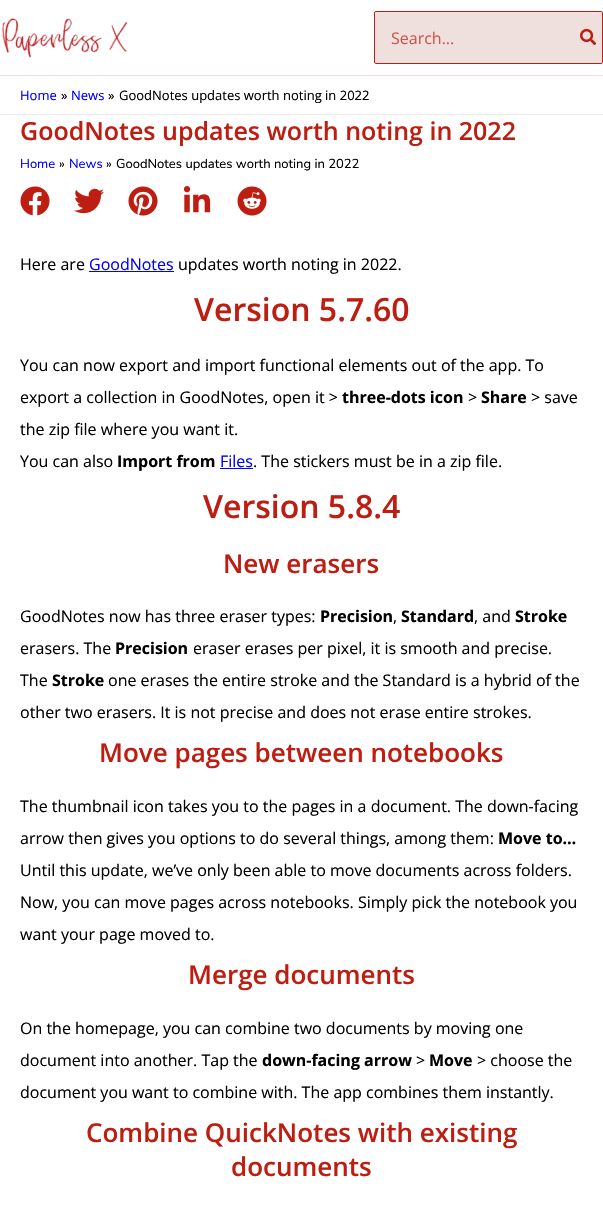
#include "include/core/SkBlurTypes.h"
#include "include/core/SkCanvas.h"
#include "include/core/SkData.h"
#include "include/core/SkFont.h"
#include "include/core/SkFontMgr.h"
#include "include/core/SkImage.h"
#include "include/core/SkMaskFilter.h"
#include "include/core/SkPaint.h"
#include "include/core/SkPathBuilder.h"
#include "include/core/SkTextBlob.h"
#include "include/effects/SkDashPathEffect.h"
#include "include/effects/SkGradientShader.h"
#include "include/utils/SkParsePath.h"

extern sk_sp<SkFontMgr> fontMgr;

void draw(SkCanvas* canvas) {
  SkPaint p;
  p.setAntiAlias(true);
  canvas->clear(SK_ColorWHITE);
  p.setColor(SkColorSetRGB(239, 224, 222));
  canvas->drawRect(SkRect::MakeLTRB(0, 75, 603, 76), p);
  canvas->drawImageRect(SkImages::DeferredFromEncodedData(SkData::MakeFromFileName("images/1.png")), SkRect::MakeLTRB(1, 18, 128, 58), SkSamplingOptions());
  canvas->drawRoundRect(SkRect::MakeLTRB(374.5f, 11.5f, 602.5f, 63.5f), 1.5f, 1.5f, p);
  p.setStyle(SkPaint::kStroke_Style);
  p.setStrokeWidth(1);
  p.setColor(SkColorSetRGB(190, 29, 17));
  canvas->drawRoundRect(SkRect::MakeLTRB(374.5f, 11.5f, 602.5f, 63.5f), 1.5f, 1.5f, p);
  p.setStyle(SkPaint::kFill_Style);
  p.setColor(SkColorSetRGB(239, 224, 222));
  canvas->drawRoundRect(SkRect::MakeLTRB(375, 12, 602, 63), 2, 2, p);
  canvas->drawRoundRect(SkRect::MakeLTRB(576, 12, 602, 63), 2, 2, p);
  canvas->drawImageRect(SkImages::DeferredFromEncodedData(SkData::MakeFromFileName("images/2.png")), SkRect::MakeLTRB(580, 28, 596, 45), SkSamplingOptions());
  p.setColor(SkColorSetRGB(234, 234, 234));
  canvas->drawRect(SkRect::MakeLTRB(0, 114, 603, 115), p);
  canvas->drawImageRect(SkImages::DeferredFromEncodedData(SkData::MakeFromFileName("images/3.png")), SkRect::MakeLTRB(20, 186, 50, 216), SkSamplingOptions());
  canvas->drawImageRect(SkImages::DeferredFromEncodedData(SkData::MakeFromFileName("images/4.png")), SkRect::MakeLTRB(74, 188, 104, 214), SkSamplingOptions());
  canvas->drawImageRect(SkImages::DeferredFromEncodedData(SkData::MakeFromFileName("images/5.png")), SkRect::MakeLTRB(128, 186, 158, 216), SkSamplingOptions());
  canvas->drawImageRect(SkImages::DeferredFromEncodedData(SkData::MakeFromFileName("images/6.png")), SkRect::MakeLTRB(183, 186, 211, 213), SkSamplingOptions());
  canvas->drawImageRect(SkImages::DeferredFromEncodedData(SkData::MakeFromFileName("images/7.png")), SkRect::MakeLTRB(237, 186, 267, 216), SkSamplingOptions());
  p.setColor(SkColorSetRGB(0, 0, 255));
  canvas->drawRect(SkRect::MakeLTRB(89, 271, 174, 272), p);
  canvas->drawRect(SkRect::MakeLTRB(220, 468, 253, 469), p);
  SkFont font1(fontMgr->matchFamilyStyle("Open Sans", SkFontStyle::Normal()), 16);
  font1.setSubpixel(true);
  p.setColor(SkColorSetRGB(206, 86, 77));
  canvas->drawString("Search...", 391, 44, font1, p);
  SkFont font2(fontMgr->matchFamilyStyle("Open Sans", SkFontStyle::Normal()), 13);
  font2.setSubpixel(true);
  p.setColor(SkColorSetRGB(0, 0, 255));
  canvas->drawString("Home", 20, 100, font2, p);
  p.setColor(SK_ColorBLACK);
  canvas->drawString("»", 61, 100, font2, p);
  p.setColor(SkColorSetRGB(0, 0, 255));
  canvas->drawString("News", 71, 100, font2, p);
  p.setColor(SK_ColorBLACK);
  canvas->drawString("»", 108, 100, font2, p);
  canvas->drawString("GoodNotes updates worth noting in 2022", 119, 100, font2, p);
  SkFont font3(fontMgr->matchFamilyStyle("Open Sans", SkFontStyle(600, SkFontStyle::kNormal_Width, SkFontStyle::kUpright_Slant)), 25);
  font3.setSubpixel(true);
  p.setColor(SkColorSetRGB(190, 29, 17));
  canvas->drawString("GoodNotes updates worth noting in 2022", 20, 140, font3, p);
  SkFont font4(fontMgr->matchFamilyStyle("Nunito", SkFontStyle::Normal()), 13);
  font4.setSubpixel(true);
  p.setColor(SkColorSetRGB(0, 0, 255));
  canvas->drawString("Home", 20, 168, font4, p);
  p.setColor(SK_ColorBLACK);
  canvas->drawString("»", 59, 168, font4, p);
  p.setColor(SkColorSetRGB(0, 0, 255));
  canvas->drawString("News", 69, 168, font4, p);
  p.setColor(SK_ColorBLACK);
  canvas->drawString("»", 106, 168, font4, p);
  canvas->drawString("GoodNotes updates worth noting in 2022", 116, 168, font4, p);
  canvas->drawString("Here are", 20, 270, font1, p);
  p.setColor(SkColorSetRGB(0, 0, 255));
  canvas->drawString("GoodNotes", 89, 270, font1, p);
  p.setColor(SK_ColorBLACK);
  canvas->drawString("updates worth noting in 2022.", 178, 270, font1, p);
  SkFont font5(fontMgr->matchFamilyStyle("Open Sans", SkFontStyle(600, SkFontStyle::kNormal_Width, SkFontStyle::kUpright_Slant)), 32);
  font5.setSubpixel(true);
  p.setColor(SkColorSetRGB(190, 29, 17));
  canvas->drawString("Version 5.7.60", 194, 321, font5, p);
  p.setColor(SK_ColorBLACK);
  canvas->drawString("You can now export and import functional elements out of the app. To", 20, 371, font1, p);
  canvas->drawString("export a collection in GoodNotes, open it >", 20, 403, font1, p);
  SkFont font6(fontMgr->matchFamilyStyle("Open Sans", SkFontStyle::Bold()), 16);
  font6.setSubpixel(true);
  canvas->drawString("three-dots icon", 342, 403, font6, p);
  canvas->drawString(">", 468, 403, font1, p);
  canvas->drawString("Share", 481, 403, font6, p);
  canvas->drawString("> save", 531, 403, font1, p);
  canvas->drawString("the zip file where you want it.", 20, 435, font1, p);
  canvas->drawString("You can also", 20, 467, font1, p);
  canvas->drawString("Import from", 117, 467, font6, p);
  p.setColor(SkColorSetRGB(0, 0, 255));
  canvas->drawString("Files", 220, 467, font1, p);
  p.setColor(SK_ColorBLACK);
  canvas->drawString(". The stickers must be in a zip file.", 253, 467, font1, p);
  p.setColor(SkColorSetRGB(190, 29, 17));
  canvas->drawString("Version 5.8.4", 203, 518, font5, p);
  SkFont font7(fontMgr->matchFamilyStyle("Open Sans", SkFontStyle(600, SkFontStyle::kNormal_Width, SkFontStyle::kUpright_Slant)), 26);
  font7.setSubpixel(true);
  canvas->drawString("New erasers", 223, 573, font7, p);
  p.setColor(SK_ColorBLACK);
  canvas->drawString("GoodNotes now has three eraser types:", 20, 622, font1, p);
  canvas->drawString("Precision", 320, 622, font6, p);
  canvas->drawString(",", 393, 622, font1, p);
  canvas->drawString("Standard", 401, 622, font6, p);
  canvas->drawString(", and", 474, 622, font1, p);
  canvas->drawString("Stroke", 515, 622, font6, p);
  canvas->drawString("erasers. The", 20, 654, font1, p);
  canvas->drawString("Precision", 115, 654, font6, p);
  canvas->drawString("eraser erases per pixel, it is smooth and precise.", 193, 654, font1, p);
  canvas->drawString("The", 20, 686, font1, p);
  canvas->drawString("Stroke", 52, 686, font6, p);
  canvas->drawString("one erases the entire stroke and the Standard is a hybrid of the", 108, 686, font1, p);
  canvas->drawString("other two erasers. It is not precise and does not erase entire strokes.", 20, 718, font1, p);
  p.setColor(SkColorSetRGB(190, 29, 17));
  canvas->drawString("Move pages between notebooks", 99, 762, font7, p);
  p.setColor(SK_ColorBLACK);
  canvas->drawString("The thumbnail icon takes you to the pages in a document. The down-facing", 20, 812, font1, p);
  canvas->drawString("arrow then gives you options to do several things, among them:", 20, 844, font1, p);
  canvas->drawString("Move to…", 498, 844, font6, p);
  canvas->drawString("Until this update, we’ve only been able to move documents across folders.", 20, 876, font1, p);
  canvas->drawString("Now, you can move pages across notebooks. Simply pick the notebook you", 20, 908, font1, p);
  canvas->drawString("want your page moved to.", 20, 940, font1, p);
  p.setColor(SkColorSetRGB(190, 29, 17));
  canvas->drawString("Merge documents", 188, 984, font7, p);
  p.setColor(SK_ColorBLACK);
  canvas->drawString("On the homepage, you can combine two documents by moving one", 20, 1034, font1, p);
  canvas->drawString("document into another. Tap the", 20, 1066, font1, p);
  canvas->drawString("down-facing arrow", 262, 1066, font6, p);
  canvas->drawString(">", 416, 1066, font1, p);
  canvas->drawString("Move", 429, 1066, font6, p);
  canvas->drawString("> choose the", 477, 1066, font1, p);
  canvas->drawString("document you want to combine with. The app combines them instantly.", 20, 1098, font1, p);
  p.setColor(SkColorSetRGB(190, 29, 17));
  canvas->drawString("Combine QuickNotes with existing", 86, 1142, font7, p);
  canvas->drawString("documents", 231, 1176, font7, p);
}
